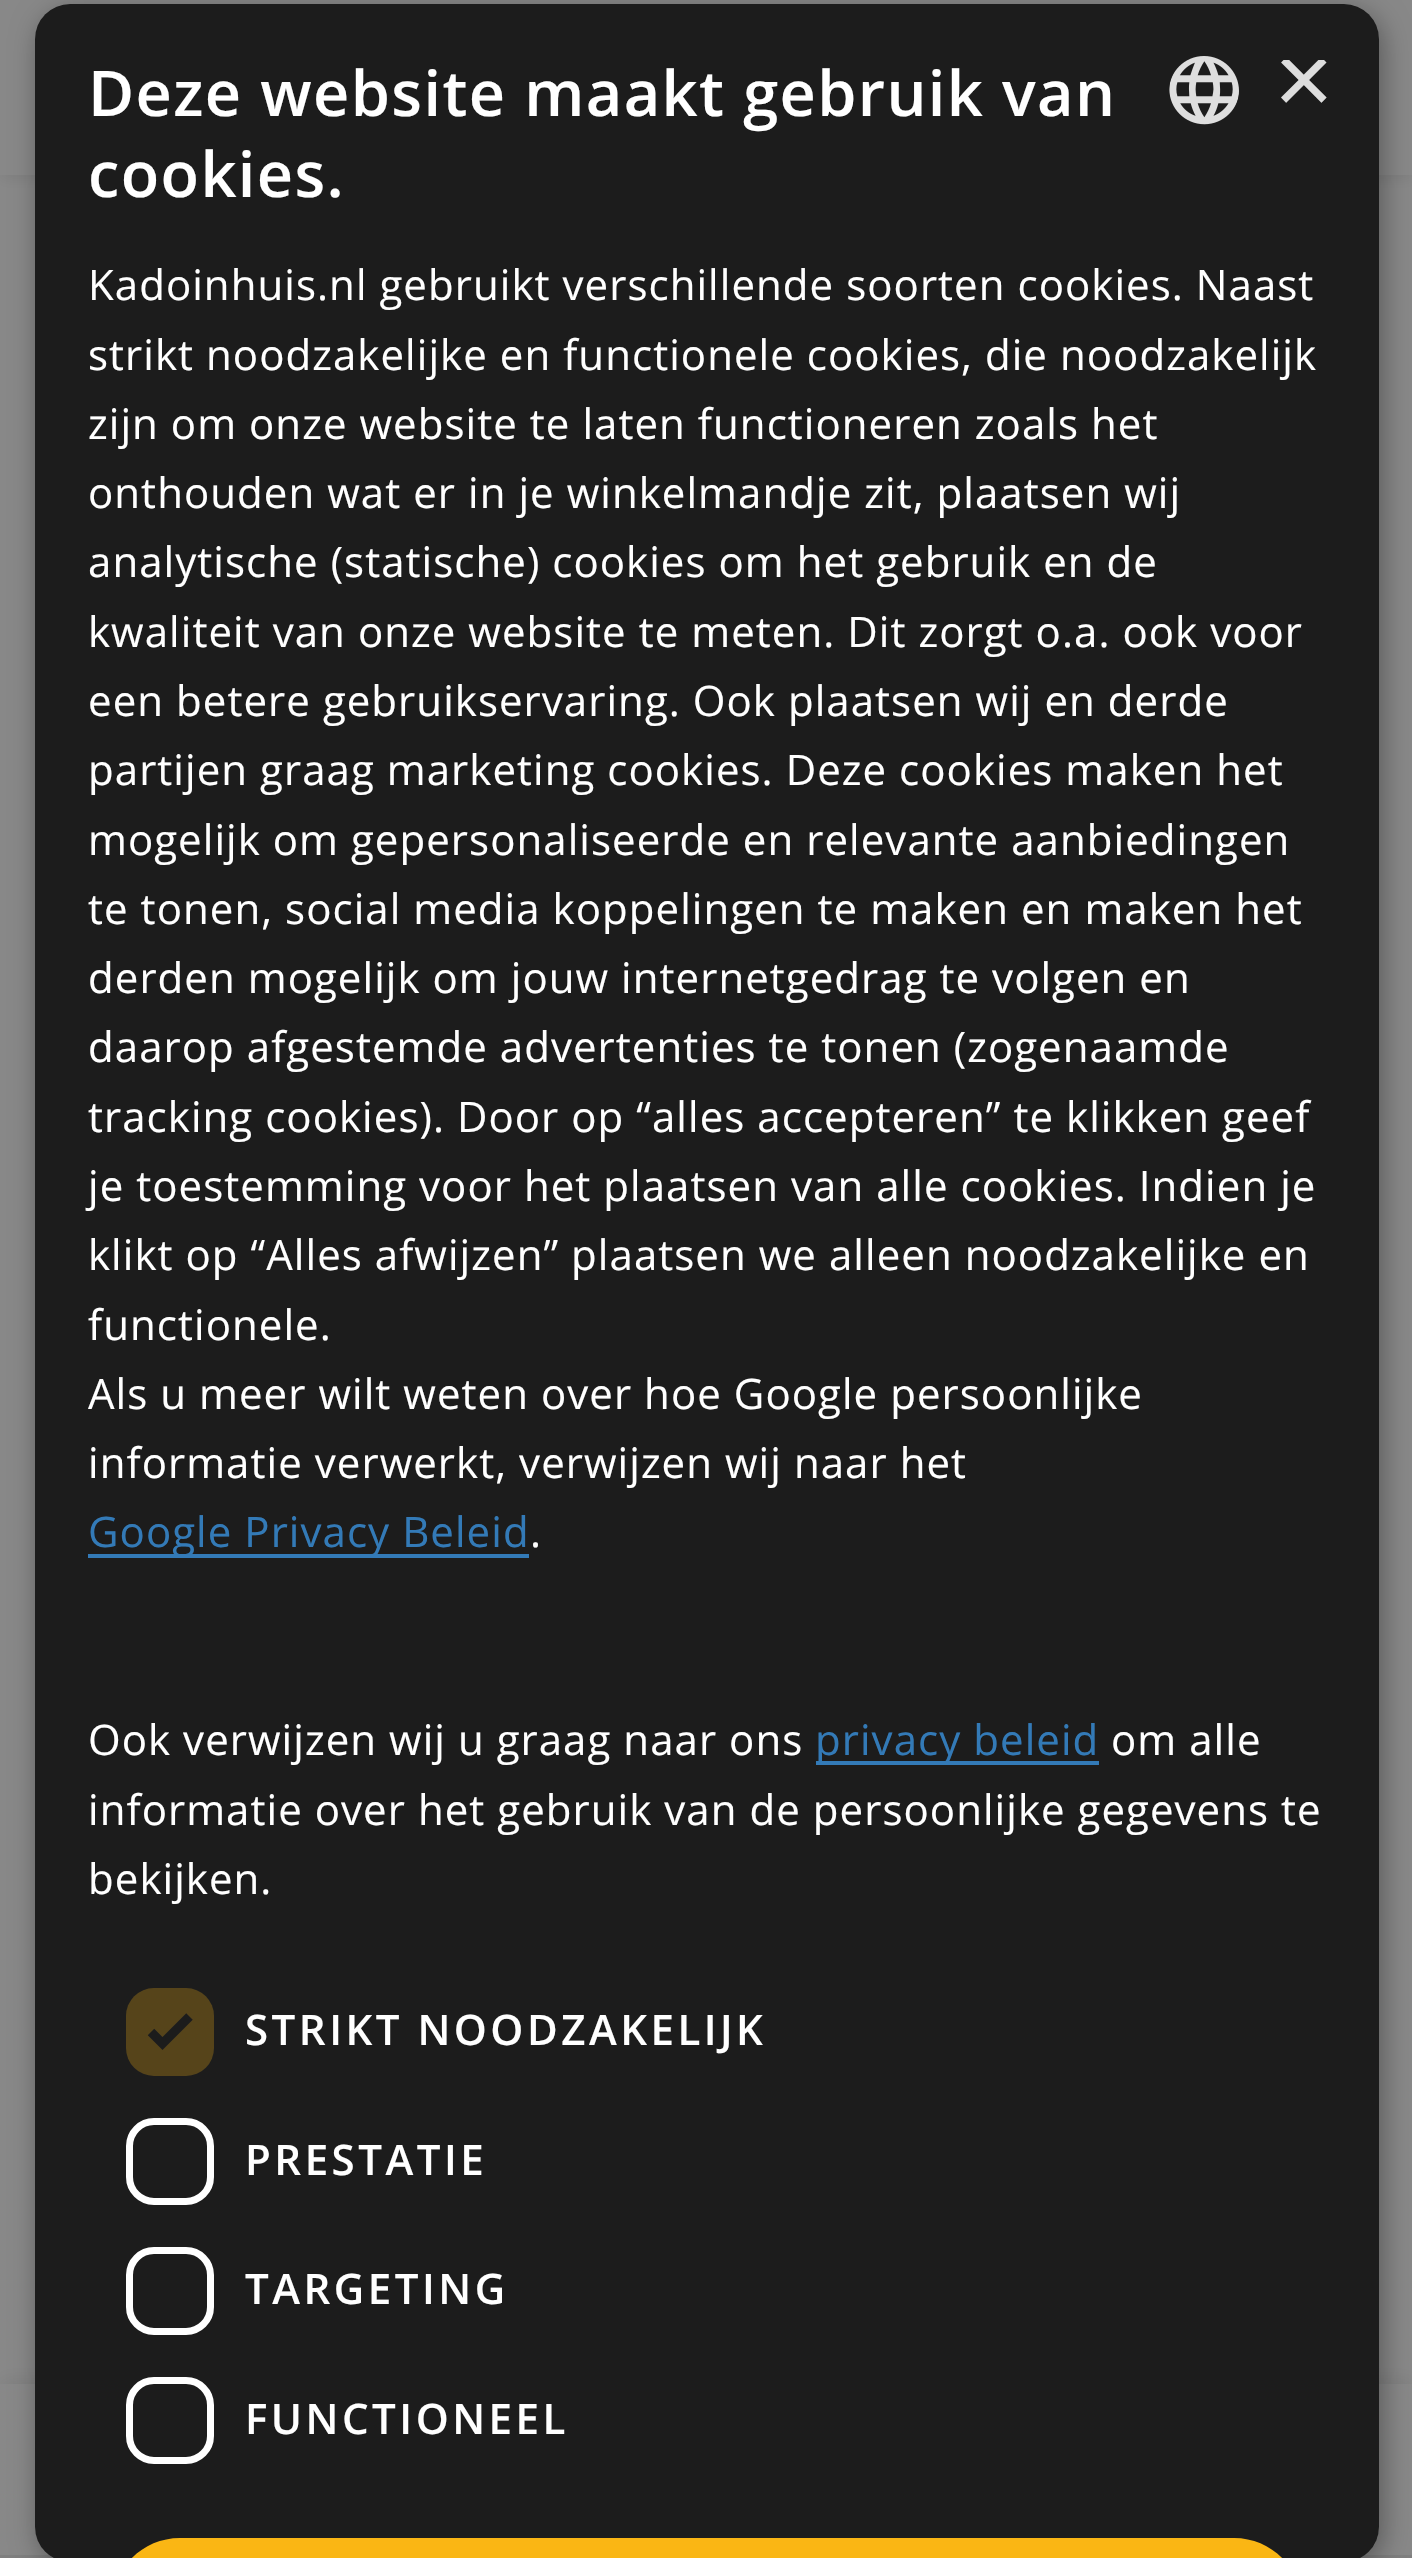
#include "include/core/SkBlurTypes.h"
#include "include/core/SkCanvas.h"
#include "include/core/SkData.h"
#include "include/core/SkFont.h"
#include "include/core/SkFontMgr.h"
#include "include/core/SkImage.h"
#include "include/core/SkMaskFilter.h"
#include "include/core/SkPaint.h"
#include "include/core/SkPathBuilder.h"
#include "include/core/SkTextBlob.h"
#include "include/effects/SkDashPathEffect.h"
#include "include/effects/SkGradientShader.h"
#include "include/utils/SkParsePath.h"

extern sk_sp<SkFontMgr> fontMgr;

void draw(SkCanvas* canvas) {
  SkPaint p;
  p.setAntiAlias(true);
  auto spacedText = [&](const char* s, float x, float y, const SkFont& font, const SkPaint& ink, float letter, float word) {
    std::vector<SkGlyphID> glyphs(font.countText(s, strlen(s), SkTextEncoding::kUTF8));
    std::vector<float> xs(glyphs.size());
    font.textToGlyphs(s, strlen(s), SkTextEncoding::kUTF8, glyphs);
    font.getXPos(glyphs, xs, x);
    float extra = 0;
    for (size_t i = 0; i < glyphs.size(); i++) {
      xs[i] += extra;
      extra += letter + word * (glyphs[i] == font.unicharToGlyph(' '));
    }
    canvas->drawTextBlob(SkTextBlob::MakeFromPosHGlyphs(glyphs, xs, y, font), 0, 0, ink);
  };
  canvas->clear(SkColorSetRGB(136, 136, 136));
  p.setColor(SkColorSetARGB(20, 9, 9, 9));
  p.setMaskFilter(SkMaskFilter::MakeBlur(kNormal_SkBlurStyle, 7));
  canvas->drawRect(SkRect::MakeLTRB(0, 4, 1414, 179), p);
  p.setMaskFilter(nullptr);
  p.setColor(SkColorSetRGB(136, 136, 136));
  canvas->drawRect(SkRect::MakeLTRB(0, 0, 1412, 175), p);
  p.setColor(SkColorSetARGB(20, 9, 9, 9));
  p.setMaskFilter(SkMaskFilter::MakeBlur(kNormal_SkBlurStyle, 9));
  canvas->drawRect(SkRect::MakeLTRB(0, 2380, 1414, 2555), p);
  p.setMaskFilter(nullptr);
  p.setColor(SkColorSetRGB(136, 136, 136));
  canvas->drawRect(SkRect::MakeLTRB(0, 2384, 1412, 2555), p);
  p.setColor(SkColorSetRGB(127, 127, 127));
  canvas->drawRect(SkRect::MakeLTRB(0, 2555, 1412, 2558), p);
  canvas->save();
  canvas->clipPath(SkPathBuilder(SkPathFillType::kEvenOdd).moveTo(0, 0).lineTo(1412, 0).lineTo(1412, 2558).lineTo(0, 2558).close().moveTo(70, 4).lineTo(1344, 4).cubicTo(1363.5f, 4, 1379, 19.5f, 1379, 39).lineTo(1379, 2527).cubicTo(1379, 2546.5f, 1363.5f, 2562, 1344, 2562).lineTo(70, 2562).cubicTo(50.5f, 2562, 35, 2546.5f, 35, 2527).lineTo(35, 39).cubicTo(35, 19.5f, 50.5f, 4, 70, 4).close().detach(), true);
  p.setColor(SkColorSetARGB(89, 0, 0, 0));
  p.setMaskFilter(SkMaskFilter::MakeBlur(kNormal_SkBlurStyle, 14));
  canvas->drawRoundRect(SkRect::MakeLTRB(39, 11, 1383, 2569), 35, 35, p);
  p.setMaskFilter(nullptr);
  canvas->restore();
  p.setColor(SkColorSetRGB(28, 28, 28));
  canvas->drawRoundRect(SkRect::MakeLTRB(35, 4, 1379, 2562), 35, 35, p);
  canvas->drawImageRect(SkImages::DeferredFromEncodedData(SkData::MakeFromFileName("images/1.png")), SkRect::MakeLTRB(1169, 56, 1239, 125), SkSamplingOptions());
  p.setColor(SkColorSetRGB(51, 122, 183));
  canvas->drawRect(SkRect::MakeLTRB(88, 1554, 529, 1558), p);
  canvas->drawRect(SkRect::MakeLTRB(816, 1761, 1099, 1765), p);
  p.setColor(SkColorSetRGB(86, 68, 26));
  canvas->drawRoundRect(SkRect::MakeLTRB(126, 1988, 214, 2076), 28, 28, p);
  p.setStyle(SkPaint::kStroke_Style);
  p.setStrokeWidth(9.2f);
  p.setColor(SkColorSetRGB(28, 28, 28));
  canvas->drawPath(SkPathBuilder().moveTo(151, 2032).lineTo(162.5f, 2043.5f).lineTo(189.5f, 2016.5f).detach(), p);
  p.setStrokeWidth(7);
  p.setColor(SK_ColorWHITE);
  canvas->drawRoundRect(SkRect::MakeLTRB(129.5f, 2121.5f, 210.5f, 2201.5f), 24.5f, 24.5f, p);
  canvas->drawRoundRect(SkRect::MakeLTRB(129.5f, 2250.5f, 210.5f, 2331.5f), 24.5f, 24.5f, p);
  canvas->drawRoundRect(SkRect::MakeLTRB(129.5f, 2380.5f, 210.5f, 2460.5f), 24.5f, 24.5f, p);
  p.setStyle(SkPaint::kFill_Style);
  p.setColor(SkColorSetRGB(250, 182, 20));
  canvas->drawPath(SkPathBuilder().moveTo(180, 2538).lineTo(1234, 2538).cubicTo(1271.5f, 2538, 1302, 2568.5f, 1302, 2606).lineTo(1302, 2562).lineTo(112, 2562).lineTo(112, 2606).cubicTo(112, 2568.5f, 142.5f, 2538, 180, 2538).close().detach(), p);
  SkFont font1(fontMgr->matchFamilyStyle("Open Sans", SkFontStyle(600, SkFontStyle::kNormal_Width, SkFontStyle::kUpright_Slant)), 63);
  font1.setSubpixel(true);
  p.setColor(SK_ColorWHITE);
  spacedText("Deze website maakt gebruik van", 88, 116, font1, p, 1.4f, 0);
  spacedText("cookies.", 88, 197, font1, p, 1.4f, 0);
  canvas->save();
  canvas->clipRect(SkRect::MakeLTRB(1274, 60, 1327, 112));
  SkFont font2(fontMgr->matchFamilyStyle("Liberation Sans", SkFontStyle::Normal()), 102);
  font2.setSubpixel(true);
  p.setColor(SkColorSetRGB(221, 221, 221));
  canvas->drawString("×", 1274, 114, font2, p);
  canvas->restore();
  SkFont font3(fontMgr->matchFamilyStyle("Open Sans", SkFontStyle::Normal()), 42);
  font3.setSubpixel(true);
  p.setColor(SK_ColorWHITE);
  spacedText("Kadoinhuis.nl gebruikt verschillende soorten cookies. Naast", 88, 300, font3, p, 1.05f, 0);
  spacedText("strikt noodzakelijke en functionele cookies, die noodzakelijk", 88, 370, font3, p, 1.05f, 0);
  spacedText("zijn om onze website te laten functioneren zoals het", 88, 439, font3, p, 1.05f, 0);
  spacedText("onthouden wat er in je winkelmandje zit, plaatsen wij", 88, 508, font3, p, 1.05f, 0);
  spacedText("analytische (statische) cookies om het gebruik en de", 88, 577, font3, p, 1.05f, 0);
  spacedText("kwaliteit van onze website te meten. Dit zorgt o.a. ook voor", 88, 647, font3, p, 1.05f, 0);
  spacedText("een betere gebruikservaring. Ook plaatsen wij en derde", 88, 716, font3, p, 1.05f, 0);
  spacedText("partijen graag marketing cookies. Deze cookies maken het", 88, 785, font3, p, 1.05f, 0);
  spacedText("mogelijk om gepersonaliseerde en relevante aanbiedingen", 88, 855, font3, p, 1.05f, 0);
  spacedText("te tonen, social media koppelingen te maken en maken het", 88, 924, font3, p, 1.05f, 0);
  spacedText("derden mogelijk om jouw internetgedrag te volgen en", 88, 993, font3, p, 1.05f, 0);
  spacedText("daarop afgestemde advertenties te tonen (zogenaamde", 88, 1062, font3, p, 1.05f, 0);
  spacedText("tracking cookies). Door op “alles accepteren” te klikken geef", 88, 1132, font3, p, 1.05f, 0);
  spacedText("je toestemming voor het plaatsen van alle cookies. Indien je", 88, 1201, font3, p, 1.05f, 0);
  spacedText("klikt op “Alles afwijzen” plaatsen we alleen noodzakelijke en", 88, 1270, font3, p, 1.05f, 0);
  spacedText("functionele.", 88, 1340, font3, p, 1.05f, 0);
  spacedText("Als u meer wilt weten over hoe Google persoonlijke", 88, 1409, font3, p, 1.05f, 0);
  spacedText("informatie verwerkt, verwijzen wij naar het", 88, 1478, font3, p, 1.05f, 0);
  p.setColor(SkColorSetRGB(51, 122, 183));
  spacedText("Google Privacy Beleid", 88, 1547, font3, p, 1.05f, 0);
  p.setColor(SK_ColorWHITE);
  spacedText(".", 530, 1547, font3, p, 1.05f, 0);
  spacedText("Ook verwijzen wij u graag naar ons", 88, 1755, font3, p, 1.05f, 0);
  p.setColor(SkColorSetRGB(51, 122, 183));
  spacedText("privacy beleid", 815, 1755, font3, p, 1.05f, 0);
  p.setColor(SK_ColorWHITE);
  spacedText("om alle", 1111, 1755, font3, p, 1.05f, 0);
  spacedText("informatie over het gebruik van de persoonlijke gegevens te", 88, 1825, font3, p, 1.05f, 0);
  spacedText("bekijken.", 88, 1894, font3, p, 1.05f, 0);
  SkFont font4(fontMgr->matchFamilyStyle("Open Sans", SkFontStyle(600, SkFontStyle::kNormal_Width, SkFontStyle::kUpright_Slant)), 42);
  font4.setSubpixel(true);
  spacedText("STRIKT NOODZAKELIJK", 245, 2045, font4, p, 3.5f, 0);
  spacedText("PRESTATIE", 245, 2175, font4, p, 3.5f, 0);
  spacedText("TARGETING", 245, 2304, font4, p, 3.5f, 0);
  spacedText("FUNCTIONEEL", 245, 2434, font4, p, 3.5f, 0);
}
